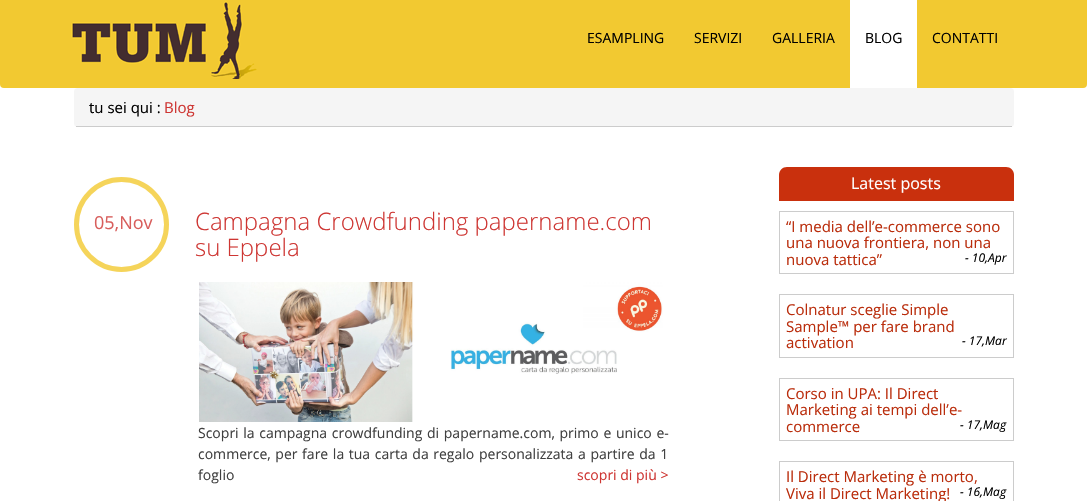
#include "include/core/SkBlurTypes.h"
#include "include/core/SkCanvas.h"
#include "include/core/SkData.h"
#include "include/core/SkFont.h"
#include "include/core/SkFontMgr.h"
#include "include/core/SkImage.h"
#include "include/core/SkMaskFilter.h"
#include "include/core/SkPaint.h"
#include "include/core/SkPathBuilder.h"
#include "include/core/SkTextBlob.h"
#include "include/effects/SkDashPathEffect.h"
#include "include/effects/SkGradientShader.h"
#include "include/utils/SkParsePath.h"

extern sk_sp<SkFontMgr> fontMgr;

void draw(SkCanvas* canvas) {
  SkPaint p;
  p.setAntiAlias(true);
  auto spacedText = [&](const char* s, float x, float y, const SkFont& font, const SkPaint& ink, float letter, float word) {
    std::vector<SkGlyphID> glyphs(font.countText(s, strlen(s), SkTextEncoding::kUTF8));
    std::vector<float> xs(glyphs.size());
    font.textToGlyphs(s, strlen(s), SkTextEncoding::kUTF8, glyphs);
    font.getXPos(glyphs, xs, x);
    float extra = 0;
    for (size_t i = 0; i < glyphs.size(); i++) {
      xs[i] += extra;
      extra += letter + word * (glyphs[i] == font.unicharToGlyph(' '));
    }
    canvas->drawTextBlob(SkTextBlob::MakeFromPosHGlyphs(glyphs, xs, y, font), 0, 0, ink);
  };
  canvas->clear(SK_ColorWHITE);
  p.setColor(SkColorSetRGB(242, 201, 49));
  canvas->drawRoundRect(SkRect::MakeLTRB(0, -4, 1087, 88), 4, 4, p);
  canvas->drawImageRect(SkImages::DeferredFromEncodedData(SkData::MakeFromFileName("images/1.png")), SkRect::MakeLTRB(71, 1, 257, 79), SkSamplingOptions());
  p.setColor(SK_ColorWHITE);
  canvas->drawRect(SkRect::MakeLTRB(850, 0, 917, 88), p);
  p.setColor(SkColorSetRGB(245, 245, 245));
  canvas->drawRoundRect(SkRect::MakeLTRB(74, 88, 1014, 127), 4, 4, p);
  p.setColor(SkColorSetRGB(204, 204, 204));
  canvas->drawRect(SkRect::MakeLTRB(76, 126, 1012, 127), p);
  p.setStyle(SkPaint::kStroke_Style);
  p.setStrokeWidth(5);
  p.setColor(SkColorSetRGB(245, 212, 90));
  canvas->drawCircle(121.5f, 224.5f, 45, p);
  canvas->drawImageRect(SkImages::DeferredFromEncodedData(SkData::MakeFromFileName("images/2.png")), SkRect::MakeLTRB(199, 282, 663, 422), SkSamplingOptions());
  p.setStyle(SkPaint::kFill_Style);
  p.setColor(SkColorSetRGB(201, 48, 13));
  canvas->drawPath(SkPathBuilder().moveTo(787, 167).lineTo(1006, 167).cubicTo(1010.5f, 167, 1014, 170.5f, 1014, 175).lineTo(1014, 201).lineTo(779, 201).lineTo(779, 175).cubicTo(779, 170.5f, 782.5f, 167, 787, 167).close().detach(), p);
  p.setStyle(SkPaint::kStroke_Style);
  p.setStrokeWidth(1);
  p.setColor(SkColorSetRGB(204, 204, 204));
  canvas->drawRect(SkRect::MakeLTRB(779.5f, 211.5f, 1013.5f, 273.5f), p);
  canvas->drawRect(SkRect::MakeLTRB(779.5f, 294.5f, 1013.5f, 357.5f), p);
  canvas->drawRect(SkRect::MakeLTRB(779.5f, 378.5f, 1013.5f, 440.5f), p);
  canvas->drawRect(SkRect::MakeLTRB(779.5f, 461.5f, 1013.5f, 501.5f), p);
  SkFont font1(fontMgr->matchFamilyStyle("Open Sans", SkFontStyle::Normal()), 14);
  font1.setSubpixel(true);
  p.setStyle(SkPaint::kFill_Style);
  p.setColor(SK_ColorBLACK);
  canvas->drawString("ESAMPLING", 587, 43, font1, p);
  canvas->drawString("SERVIZI", 694, 43, font1, p);
  canvas->drawString("GALLERIA", 772, 43, font1, p);
  canvas->drawString("BLOG", 865, 43, font1, p);
  canvas->drawString("CONTATTI", 932, 43, font1, p);
  SkFont font2(fontMgr->matchFamilyStyle("Open Sans", SkFontStyle::Normal()), 15);
  font2.setSubpixel(true);
  canvas->drawString("tu sei qui :", 89, 113, font2, p);
  p.setColor(SkColorSetRGB(206, 54, 51));
  canvas->drawString("Blog", 164, 113, font2, p);
  SkFont font3(fontMgr->matchFamilyStyle("Open Sans", SkFontStyle::Normal()), 18);
  font3.setSubpixel(true);
  p.setColor(SkColorSetRGB(216, 94, 92));
  canvas->drawString("05,Nov", 94, 229, font3, p);
  SkFont font4(fontMgr->matchFamilyStyle("Open Sans", SkFontStyle(300, SkFontStyle::kNormal_Width, SkFontStyle::kUpright_Slant)), 24);
  font4.setSubpixel(true);
  p.setColor(SkColorSetRGB(206, 54, 51));
  canvas->drawString("Campagna Crowdfunding papername.com", 195, 230, font4, p);
  canvas->drawString("su Eppela", 195, 256, font4, p);
  SkFont font5(fontMgr->matchFamilyStyle("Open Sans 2", SkFontStyle::Normal()), 14);
  font5.setSubpixel(true);
  p.setColor(SkColorSetRGB(64, 64, 64));
  spacedText("Scopri la campagna crowdfunding di papername.com, primo e unico e-", 198, 438, font5, p, 0, 1);
  spacedText("commerce, per fare la tua carta da regalo personalizzata a partire da 1", 198, 459, font5, p, 0, 1);
  canvas->drawString("foglio", 198, 480, font5, p);
  p.setColor(SkColorSetRGB(206, 54, 51));
  canvas->drawString("scopri di più >", 577, 480, font5, p);
  SkFont font6(fontMgr->matchFamilyStyle("Open Sans", SkFontStyle::Normal()), 16);
  font6.setSubpixel(true);
  p.setColor(SK_ColorWHITE);
  canvas->drawString("Latest posts", 851, 189, font6, p);
  p.setColor(SkColorSetRGB(186, 45, 12));
  canvas->drawString("“I media dell’e-commerce sono", 786, 232, font2, p);
  canvas->drawString("una nuova frontiera, non una", 786, 248, font2, p);
  canvas->drawString("nuova tattica”", 786, 265, font2, p);
  SkFont font7(fontMgr->matchFamilyStyle("Open Sans", SkFontStyle::Italic()), 12);
  font7.setSubpixel(true);
  p.setColor(SK_ColorBLACK);
  canvas->drawString("- 10,Apr", 965, 262, font7, p);
  p.setColor(SkColorSetRGB(186, 45, 12));
  canvas->drawString("Colnatur sceglie Simple", 786, 315, font2, p);
  canvas->drawString("Sample™ per fare brand", 786, 332, font2, p);
  canvas->drawString("activation", 786, 348, font2, p);
  p.setColor(SK_ColorBLACK);
  canvas->drawString("- 17,Mar", 962, 345, font7, p);
  p.setColor(SkColorSetRGB(186, 45, 12));
  canvas->drawString("Corso in UPA: Il Direct", 786, 399, font2, p);
  canvas->drawString("Marketing ai tempi dell’e-", 786, 415, font2, p);
  canvas->drawString("commerce", 786, 432, font2, p);
  p.setColor(SK_ColorBLACK);
  canvas->drawString("- 17,Mag", 960, 429, font7, p);
  p.setColor(SkColorSetRGB(186, 45, 12));
  canvas->drawString("Il Direct Marketing è morto,", 786, 482, font2, p);
  canvas->drawString("Viva il Direct Marketing!", 786, 499, font2, p);
  p.setColor(SK_ColorBLACK);
  canvas->drawString("- 16,Mag", 960, 496, font7, p);
}
